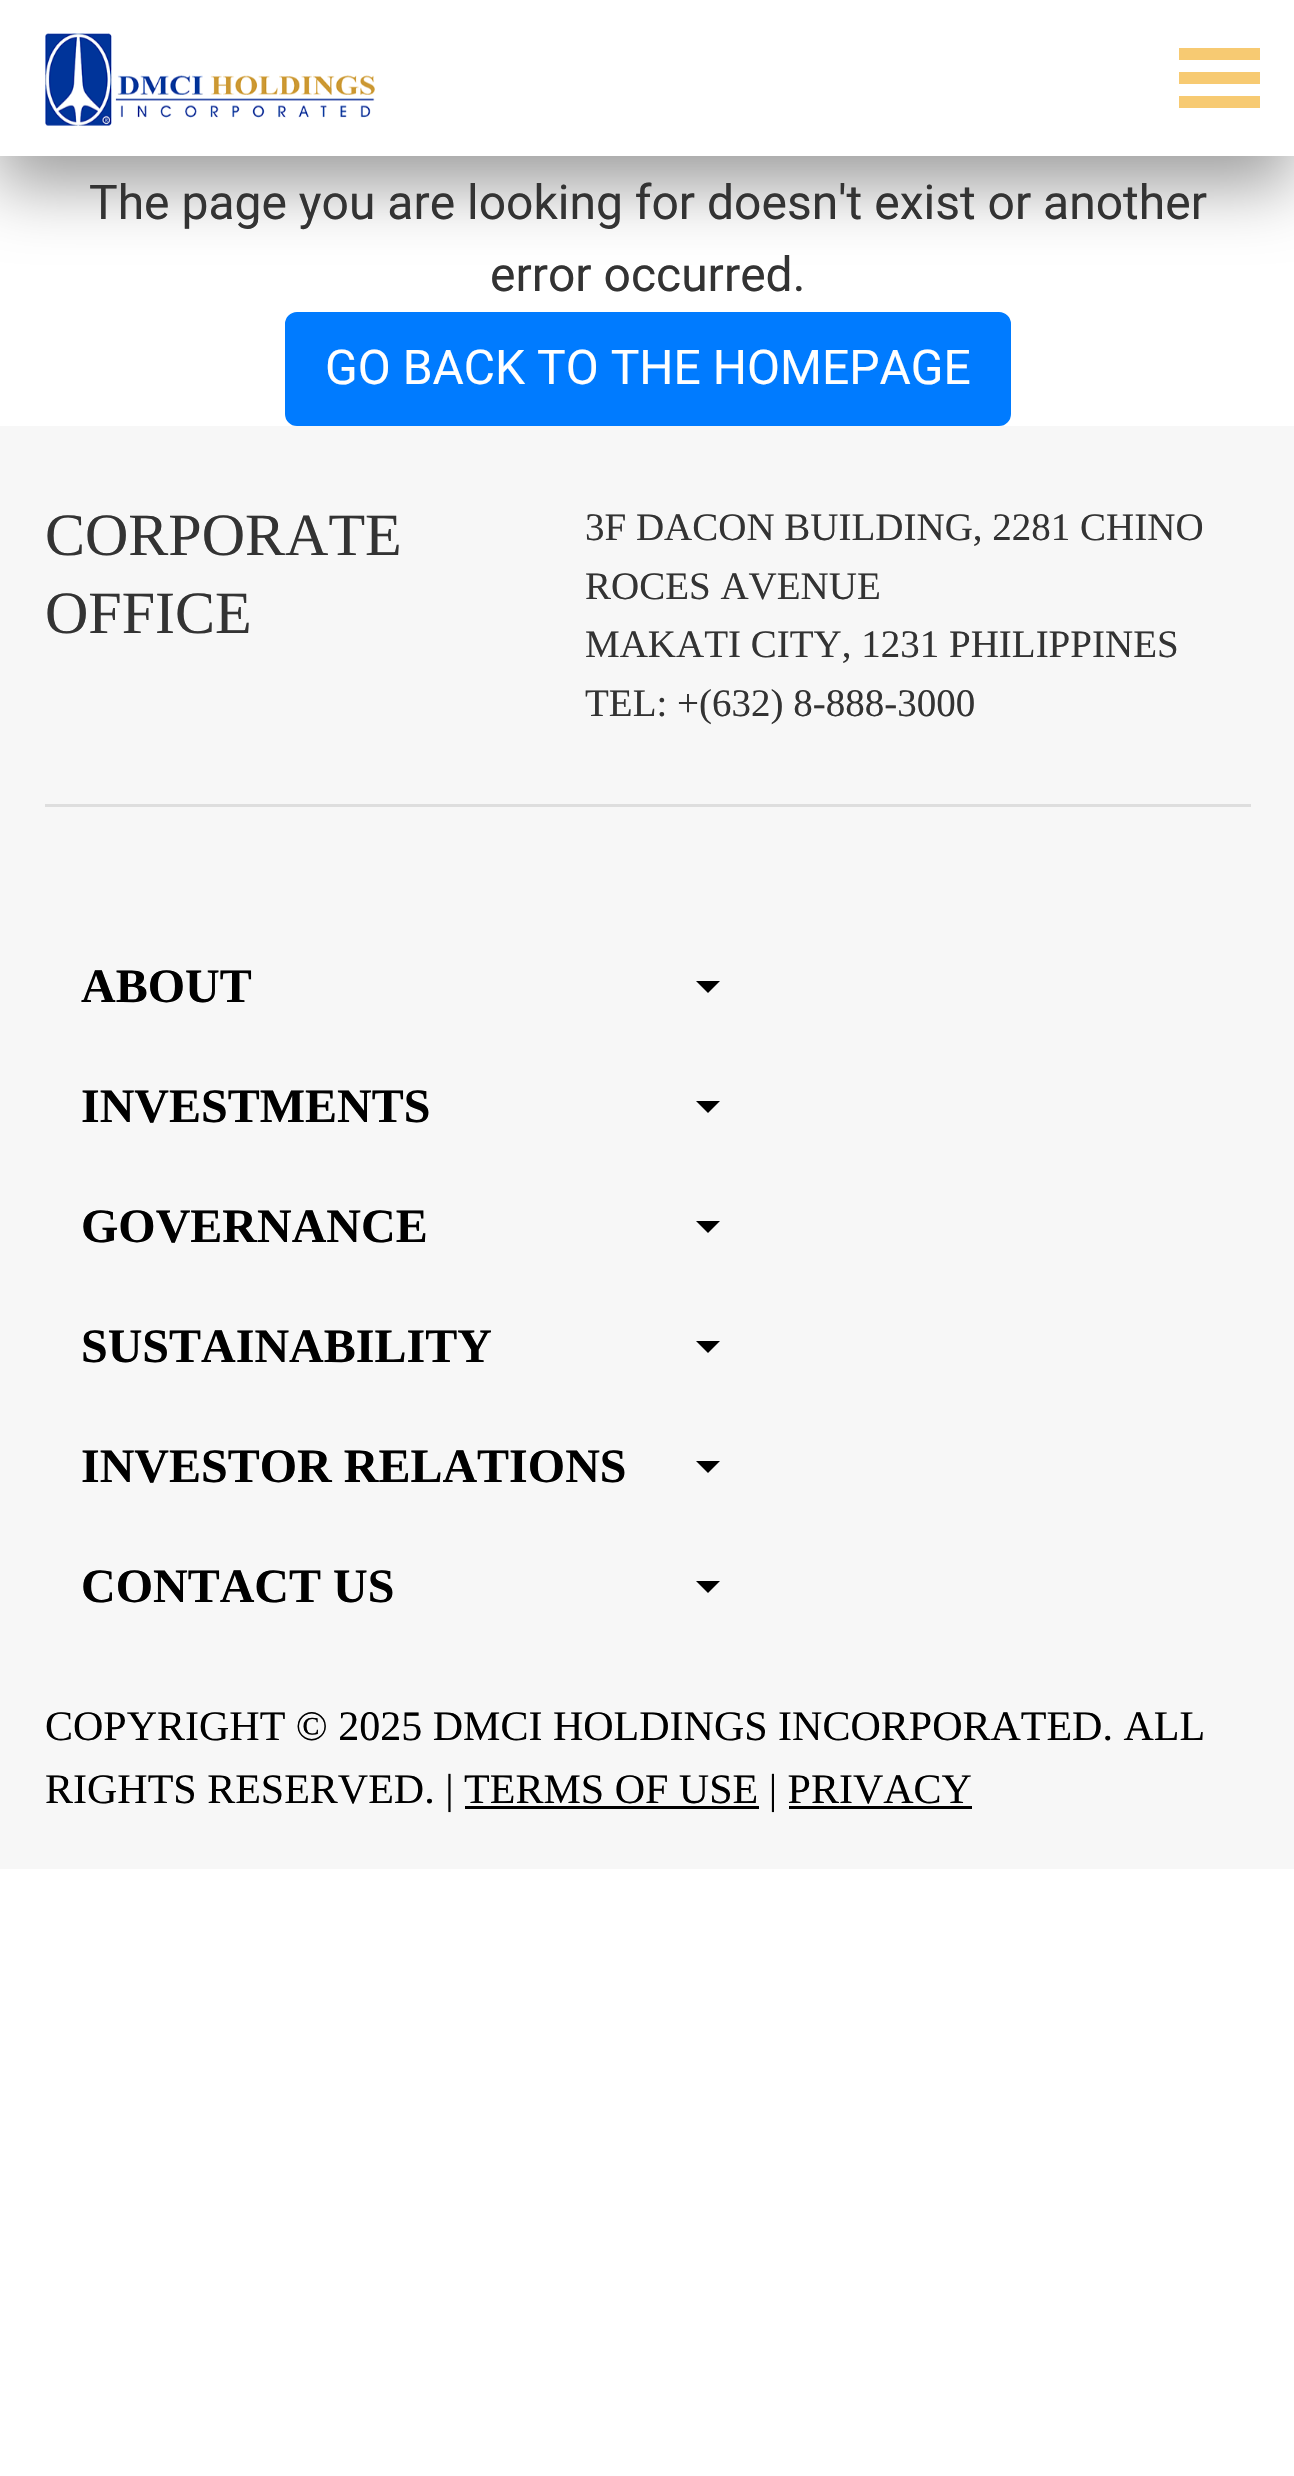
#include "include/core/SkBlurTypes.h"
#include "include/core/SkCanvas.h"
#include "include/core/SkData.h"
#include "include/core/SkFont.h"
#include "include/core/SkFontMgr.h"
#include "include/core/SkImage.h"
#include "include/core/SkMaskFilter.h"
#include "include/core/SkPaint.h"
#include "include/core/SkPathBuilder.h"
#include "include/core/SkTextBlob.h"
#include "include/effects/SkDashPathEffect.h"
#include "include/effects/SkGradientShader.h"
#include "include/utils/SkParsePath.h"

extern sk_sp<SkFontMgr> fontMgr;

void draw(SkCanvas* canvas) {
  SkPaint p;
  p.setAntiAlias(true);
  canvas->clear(SK_ColorWHITE);
  p.setColor(SkColorSetARGB(97, 0, 0, 0));
  p.setMaskFilter(SkMaskFilter::MakeBlur(kNormal_SkBlurStyle, 33));
  canvas->drawRect(SkRect::MakeLTRB(-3, 30, 1293, 186), p);
  p.setMaskFilter(nullptr);
  p.setColor(SK_ColorWHITE);
  canvas->drawRect(SkRect::MakeLTRB(0, 0, 1294, 156), p);
  canvas->drawImageRect(SkImages::DeferredFromEncodedData(SkData::MakeFromFileName("images/1.png")), SkRect::MakeLTRB(45, 33, 375, 126), SkSamplingOptions());
  p.setColor(SkColorSetRGB(247, 202, 114));
  canvas->drawRect(SkRect::MakeLTRB(1179, 48, 1260, 60), p);
  canvas->drawRect(SkRect::MakeLTRB(1179, 72, 1260, 84), p);
  canvas->drawRect(SkRect::MakeLTRB(1179, 96, 1260, 108), p);
  p.setColor(SkColorSetRGB(0, 123, 255));
  canvas->drawRoundRect(SkRect::MakeLTRB(286.5f, 313.5f, 1009.5f, 424.5f), 10.5f, 10.5f, p);
  p.setStyle(SkPaint::kStroke_Style);
  p.setStrokeWidth(3);
  canvas->drawRoundRect(SkRect::MakeLTRB(286.5f, 313.5f, 1009.5f, 424.5f), 10.5f, 10.5f, p);
  p.setStyle(SkPaint::kFill_Style);
  p.setColor(SkColorSetRGB(247, 247, 247));
  canvas->drawRect(SkRect::MakeLTRB(0, 426, 1294, 1869), p);
  p.setColor(SkColorSetRGB(222, 222, 222));
  canvas->drawRect(SkRect::MakeLTRB(45, 804, 1251, 807), p);
  p.setColor(SK_ColorBLACK);
  canvas->drawPath(SkPathBuilder().moveTo(696, 981).lineTo(720, 981).lineTo(708, 993).close().detach(), p);
  canvas->drawPath(SkPathBuilder().moveTo(696, 1101).lineTo(720, 1101).lineTo(708, 1113).close().detach(), p);
  canvas->drawPath(SkPathBuilder().moveTo(696, 1221).lineTo(720, 1221).lineTo(708, 1233).close().detach(), p);
  canvas->drawPath(SkPathBuilder().moveTo(696, 1341).lineTo(720, 1341).lineTo(708, 1353).close().detach(), p);
  canvas->drawPath(SkPathBuilder().moveTo(696, 1461).lineTo(720, 1461).lineTo(708, 1473).close().detach(), p);
  canvas->drawPath(SkPathBuilder().moveTo(696, 1581).lineTo(720, 1581).lineTo(708, 1593).close().detach(), p);
  canvas->drawRect(SkRect::MakeLTRB(465, 1806, 759, 1809), p);
  canvas->drawRect(SkRect::MakeLTRB(789, 1806, 972, 1809), p);
  SkFont font1(fontMgr->matchFamilyStyle("Roboto", SkFontStyle::Normal()), 48);
  font1.setSubpixel(true);
  p.setColor(SkColorSetRGB(51, 51, 51));
  canvas->drawString("The page you are looking for doesn't exist or another", 89, 219, font1, p);
  canvas->drawString("error occurred.", 490, 291, font1, p);
  p.setColor(SK_ColorWHITE);
  canvas->drawString("GO BACK TO THE HOMEPAGE", 325, 384, font1, p);
  SkFont font2(fontMgr->matchFamilyStyle("Liberation Serif", SkFontStyle::Normal()), 60);
  font2.setSubpixel(true);
  p.setColor(SkColorSetRGB(51, 51, 51));
  canvas->drawString("CORPORATE", 45, 555, font2, p);
  canvas->drawString("OFFICE", 45, 633, font2, p);
  SkFont font3(fontMgr->matchFamilyStyle("Liberation Serif", SkFontStyle::Normal()), 39);
  font3.setSubpixel(true);
  canvas->drawString("3F DACON BUILDING, 2281 CHINO", 585, 540, font3, p);
  canvas->drawString("ROCES AVENUE", 585, 599, font3, p);
  canvas->drawString("MAKATI CITY, 1231 PHILIPPINES", 585, 657, font3, p);
  canvas->drawString("TEL: +(632) 8-888-3000", 585, 716, font3, p);
  SkFont font4(fontMgr->matchFamilyStyle("Liberation Serif", SkFontStyle::Bold()), 48);
  font4.setSubpixel(true);
  p.setColor(SK_ColorBLACK);
  canvas->drawString("ABOUT", 81, 1002, font4, p);
  canvas->drawString("INVESTMENTS", 81, 1122, font4, p);
  canvas->drawString("GOVERNANCE", 81, 1242, font4, p);
  canvas->drawString("SUSTAINABILITY", 81, 1362, font4, p);
  canvas->drawString("INVESTOR RELATIONS", 81, 1482, font4, p);
  canvas->drawString("CONTACT US", 81, 1602, font4, p);
  SkFont font5(fontMgr->matchFamilyStyle("Liberation Serif", SkFontStyle::Normal()), 42);
  font5.setSubpixel(true);
  canvas->drawString("COPYRIGHT © 2025 DMCI HOLDINGS INCORPORATED. ALL", 45, 1740, font5, p);
  canvas->drawString("RIGHTS RESERVED. | TERMS OF USE | PRIVACY", 45, 1803, font5, p);
}
